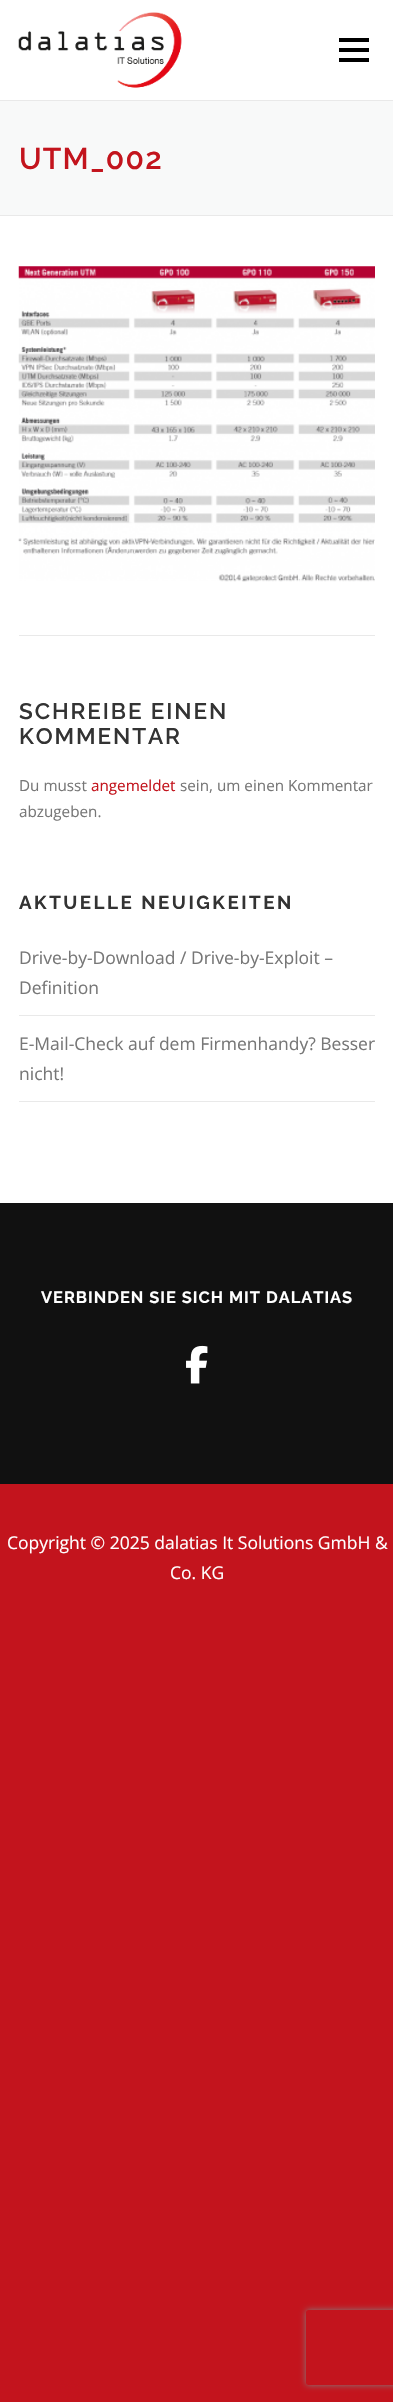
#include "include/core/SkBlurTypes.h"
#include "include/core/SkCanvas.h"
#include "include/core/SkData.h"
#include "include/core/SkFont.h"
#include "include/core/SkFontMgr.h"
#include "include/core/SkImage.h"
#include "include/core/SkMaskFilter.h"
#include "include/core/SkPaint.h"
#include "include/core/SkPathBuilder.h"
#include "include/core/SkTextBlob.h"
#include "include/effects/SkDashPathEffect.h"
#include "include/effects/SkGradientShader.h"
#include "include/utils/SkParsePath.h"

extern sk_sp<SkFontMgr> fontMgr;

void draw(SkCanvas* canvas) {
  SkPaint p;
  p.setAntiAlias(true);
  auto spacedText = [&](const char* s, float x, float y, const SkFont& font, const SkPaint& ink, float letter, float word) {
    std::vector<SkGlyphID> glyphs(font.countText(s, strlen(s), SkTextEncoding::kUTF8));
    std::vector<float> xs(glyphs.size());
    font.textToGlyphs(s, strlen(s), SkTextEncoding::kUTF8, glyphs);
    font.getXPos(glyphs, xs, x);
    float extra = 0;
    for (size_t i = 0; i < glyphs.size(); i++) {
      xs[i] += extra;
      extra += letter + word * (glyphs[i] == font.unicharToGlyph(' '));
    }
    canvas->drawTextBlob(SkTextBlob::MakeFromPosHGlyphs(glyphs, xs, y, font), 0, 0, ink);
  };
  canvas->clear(SkColorSetRGB(195, 20, 29));
  p.setColor(SK_ColorWHITE);
  canvas->drawRect(SkRect::MakeLTRB(0, 0, 393, 1203), p);
  canvas->drawImageRect(SkImages::DeferredFromEncodedData(SkData::MakeFromFileName("images/1.png")), SkRect::MakeLTRB(18, 12, 182, 88), SkSamplingOptions());
  p.setColor(SK_ColorBLACK);
  canvas->drawRect(SkRect::MakeLTRB(339, 48, 369, 52), p);
  canvas->drawRect(SkRect::MakeLTRB(339, 38, 369, 42), p);
  canvas->drawRect(SkRect::MakeLTRB(339, 58, 369, 62), p);
  p.setColor(SkColorSetRGB(248, 249, 249));
  canvas->drawRect(SkRect::MakeLTRB(0, 101, 393, 215), p);
  p.setColor(SkColorSetRGB(233, 233, 233));
  canvas->drawRect(SkRect::MakeLTRB(0, 100, 393, 101), p);
  canvas->drawRect(SkRect::MakeLTRB(0, 215, 393, 216), p);
  canvas->drawImageRect(SkImages::DeferredFromEncodedData(SkData::MakeFromFileName("images/2.png")), SkRect::MakeLTRB(18, 266, 375, 582), SkSamplingOptions());
  canvas->drawRect(SkRect::MakeLTRB(19, 635, 375, 636), p);
  canvas->drawRect(SkRect::MakeLTRB(19, 1015, 375, 1016), p);
  canvas->drawRect(SkRect::MakeLTRB(19, 1101, 375, 1102), p);
  p.setColor(SkColorSetRGB(17, 17, 17));
  canvas->drawRect(SkRect::MakeLTRB(0, 1203, 393, 1484), p);
  canvas->drawImageRect(SkImages::DeferredFromEncodedData(SkData::MakeFromFileName("images/3.png")), SkRect::MakeLTRB(186, 1345, 208, 1384), SkSamplingOptions());
  canvas->save();
  canvas->clipPath(SkPathBuilder(SkPathFillType::kEvenOdd).moveTo(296, 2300).lineTo(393, 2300).lineTo(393, 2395).lineTo(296, 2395).close().moveTo(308.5f, 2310).lineTo(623.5f, 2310).cubicTo(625, 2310, 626, 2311, 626, 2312.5f).lineTo(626, 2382.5f).cubicTo(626, 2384, 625, 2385, 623.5f, 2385).lineTo(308.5f, 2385).cubicTo(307, 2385, 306, 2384, 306, 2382.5f).lineTo(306, 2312.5f).cubicTo(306, 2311, 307, 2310, 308.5f, 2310).close().detach(), true);
  p.setColor(SkColorSetRGB(128, 128, 128));
  p.setMaskFilter(SkMaskFilter::MakeBlur(kNormal_SkBlurStyle, 3));
  canvas->drawRoundRect(SkRect::MakeLTRB(306, 2310, 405, 2385), 2.5f, 2.5f, p);
  p.setMaskFilter(nullptr);
  canvas->restore();
  SkFont font1(fontMgr->matchFamilyStyle("Raleway", SkFontStyle(600, SkFontStyle::kNormal_Width, SkFontStyle::kUpright_Slant)), 30);
  font1.setSubpixel(true);
  p.setColor(SkColorSetRGB(195, 20, 29));
  spacedText("UTM_002", 19, 169, font1, p, 1.25f, 0);
  SkFont font2(fontMgr->matchFamilyStyle("Raleway", SkFontStyle(600, SkFontStyle::kNormal_Width, SkFontStyle::kUpright_Slant)), 22.5f);
  font2.setSubpixel(true);
  p.setColor(SkColorSetRGB(51, 51, 51));
  spacedText("SCHREIBE EINEN", 19, 719, font2, p, 1.9f, 0);
  spacedText("KOMMENTAR", 19, 744, font2, p, 1.9f, 0);
  SkFont font3(fontMgr->matchFamilyStyle("Open Sans", SkFontStyle::Normal()), 15.25f);
  font3.setSubpixel(true);
  p.setColor(SkColorSetRGB(119, 119, 119));
  canvas->drawString("Du musst", 19, 791, font3, p);
  p.setColor(SkColorSetRGB(195, 20, 29));
  canvas->drawString("angemeldet", 91, 791, font3, p);
  p.setColor(SkColorSetRGB(119, 119, 119));
  canvas->drawString("sein, um einen Kommentar", 180, 791, font3, p);
  canvas->drawString("abzugeben.", 19, 817, font3, p);
  SkFont font4(fontMgr->matchFamilyStyle("Raleway", SkFontStyle::Bold()), 18.75f);
  font4.setSubpixel(true);
  p.setColor(SkColorSetRGB(51, 51, 51));
  spacedText("AKTUELLE NEUIGKEITEN", 19, 909, font4, p, 2.5f, 0);
  SkFont font5(fontMgr->matchFamilyStyle("Open Sans", SkFontStyle::Normal()), 17.5f);
  font5.setSubpixel(true);
  p.setColor(SkColorSetRGB(119, 119, 119));
  canvas->drawString("Drive-by-Download / Drive-by-Exploit –", 19, 964, font5, p);
  canvas->drawString("Definition", 19, 994, font5, p);
  canvas->drawString("E-Mail-Check auf dem Firmenhandy? Besser", 19, 1050, font5, p);
  canvas->drawString("nicht!", 19, 1080, font5, p);
  SkFont font6(fontMgr->matchFamilyStyle("Raleway", SkFontStyle::Bold()), 16.4f);
  font6.setSubpixel(true);
  p.setColor(SK_ColorWHITE);
  spacedText("VERBINDEN SIE SICH MIT DALATIAS", 41, 1303, font6, p, 1, 0);
  canvas->drawString("Copyright © 2025 dalatias It Solutions GmbH &", 7, 1549, font5, p);
  canvas->drawString("Co. KG", 170, 1579, font5, p);
}
